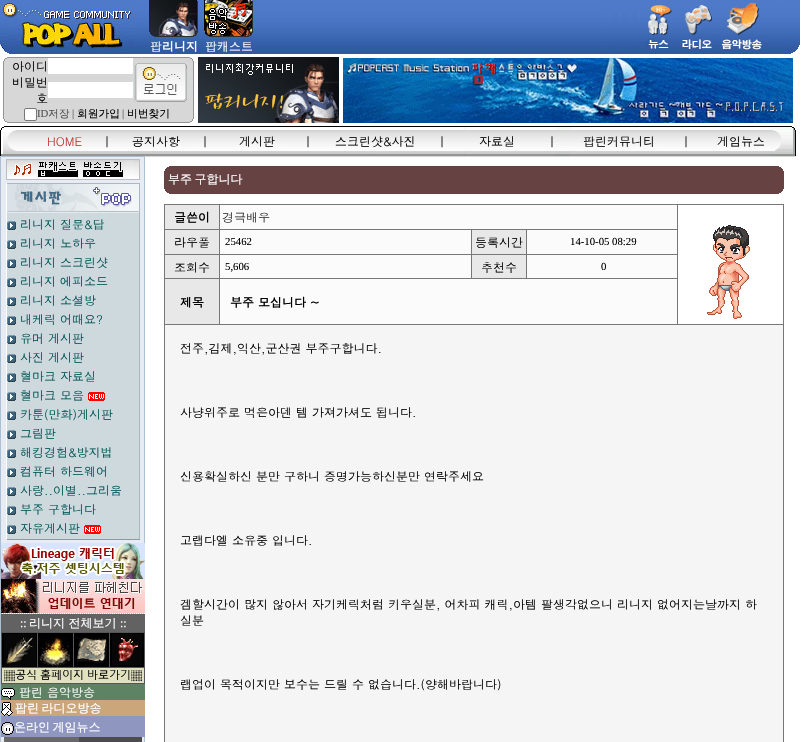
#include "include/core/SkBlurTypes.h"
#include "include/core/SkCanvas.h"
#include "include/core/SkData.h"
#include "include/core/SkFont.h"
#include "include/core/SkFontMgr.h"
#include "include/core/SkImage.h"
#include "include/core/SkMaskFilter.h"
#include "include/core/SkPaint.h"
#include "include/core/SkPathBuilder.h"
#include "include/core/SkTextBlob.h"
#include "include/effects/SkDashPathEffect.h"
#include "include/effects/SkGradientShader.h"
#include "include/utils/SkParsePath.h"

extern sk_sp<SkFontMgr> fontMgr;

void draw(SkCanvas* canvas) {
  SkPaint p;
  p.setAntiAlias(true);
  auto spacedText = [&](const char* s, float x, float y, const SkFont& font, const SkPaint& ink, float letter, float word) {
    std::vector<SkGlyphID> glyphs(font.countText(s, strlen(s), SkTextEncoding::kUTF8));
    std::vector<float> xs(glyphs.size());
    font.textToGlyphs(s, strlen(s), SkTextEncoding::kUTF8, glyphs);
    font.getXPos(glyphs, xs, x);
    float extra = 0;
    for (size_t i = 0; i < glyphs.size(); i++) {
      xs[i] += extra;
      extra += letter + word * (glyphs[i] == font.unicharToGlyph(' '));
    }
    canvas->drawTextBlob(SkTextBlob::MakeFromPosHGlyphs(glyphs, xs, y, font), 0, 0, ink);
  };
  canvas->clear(SK_ColorWHITE);
  canvas->drawImageRect(SkImages::DeferredFromEncodedData(SkData::MakeFromFileName("images/1.png")), SkRect::MakeLTRB(0, 0, 134, 54), SkSamplingOptions());
  canvas->drawImageRect(SkImages::DeferredFromEncodedData(SkData::MakeFromFileName("images/2.png")), SkRect::MakeLTRB(134, 0, 563, 54), SkSamplingOptions());
  canvas->drawImageRect(SkImages::DeferredFromEncodedData(SkData::MakeFromFileName("images/3.png")), SkRect::MakeLTRB(149, 0, 198, 37), SkSamplingOptions());
  canvas->drawImageRect(SkImages::DeferredFromEncodedData(SkData::MakeFromFileName("images/4.png")), SkRect::MakeLTRB(204, 0, 253, 37), SkSamplingOptions());
  canvas->drawImageRect(SkImages::DeferredFromEncodedData(SkData::MakeFromFileName("images/5.png")), SkRect::MakeLTRB(563, 0, 599, 54), SkSamplingOptions());
  canvas->drawImageRect(SkImages::DeferredFromEncodedData(SkData::MakeFromFileName("images/6.png")), SkRect::MakeLTRB(599, 0, 800, 54), SkSamplingOptions());
  p.setColor(SkColorSetRGB(147, 147, 147));
  canvas->drawRect(SkRect::MakeLTRB(7, 57, 190, 58), p);
  canvas->drawRect(SkRect::MakeLTRB(5, 58, 7, 59), p);
  canvas->drawRect(SkRect::MakeLTRB(4, 59, 5, 61), p);
  p.setColor(SkColorSetRGB(215, 215, 215));
  canvas->drawRect(SkRect::MakeLTRB(5, 59, 7, 61), p);
  p.setColor(SkColorSetRGB(147, 147, 147));
  canvas->drawRect(SkRect::MakeLTRB(3, 61, 4, 119), p);
  p.setColor(SkColorSetRGB(215, 215, 215));
  canvas->drawRect(SkRect::MakeLTRB(4, 61, 7, 119), p);
  p.setColor(SkColorSetRGB(147, 147, 147));
  canvas->drawRect(SkRect::MakeLTRB(4, 119, 5, 121), p);
  p.setColor(SkColorSetRGB(215, 215, 215));
  canvas->drawRect(SkRect::MakeLTRB(5, 119, 7, 121), p);
  p.setColor(SkColorSetRGB(147, 147, 147));
  canvas->drawRect(SkRect::MakeLTRB(5, 121, 7, 122), p);
  p.setColor(SkColorSetRGB(215, 215, 215));
  canvas->drawRect(SkRect::MakeLTRB(7, 58, 190, 122), p);
  p.setColor(SK_ColorWHITE);
  canvas->drawRect(SkRect::MakeLTRB(48, 58, 133, 74), p);
  canvas->drawRect(SkRect::MakeLTRB(48, 82, 133, 98), p);
  p.setColor(SkColorSetRGB(204, 204, 204));
  canvas->drawRect(SkRect::MakeLTRB(134, 63, 135, 102), p);
  canvas->drawImageRect(SkImages::DeferredFromEncodedData(SkData::MakeFromFileName("images/7.png")), SkRect::MakeLTRB(135, 63, 187, 102), SkSamplingOptions());
  p.setColor(SK_ColorWHITE);
  canvas->drawRoundRect(SkRect::MakeLTRB(24.5f, 108.5f, 36.5f, 120.5f), 1.5f, 1.5f, p);
  p.setStyle(SkPaint::kStroke_Style);
  p.setStrokeWidth(1);
  p.setColor(SkColorSetRGB(118, 118, 118));
  canvas->drawRoundRect(SkRect::MakeLTRB(24.5f, 108.5f, 36.5f, 120.5f), 1.5f, 1.5f, p);
  p.setStyle(SkPaint::kFill_Style);
  p.setColor(SkColorSetRGB(147, 147, 147));
  canvas->drawRect(SkRect::MakeLTRB(190, 58, 192, 59), p);
  p.setColor(SkColorSetRGB(215, 215, 215));
  canvas->drawRect(SkRect::MakeLTRB(190, 59, 192, 61), p);
  p.setColor(SkColorSetRGB(147, 147, 147));
  canvas->drawRect(SkRect::MakeLTRB(192, 59, 193, 61), p);
  p.setColor(SkColorSetRGB(215, 215, 215));
  canvas->drawRect(SkRect::MakeLTRB(190, 61, 193, 119), p);
  p.setColor(SkColorSetRGB(147, 147, 147));
  canvas->drawRect(SkRect::MakeLTRB(193, 61, 194, 119), p);
  p.setColor(SkColorSetRGB(215, 215, 215));
  canvas->drawRect(SkRect::MakeLTRB(190, 119, 192, 121), p);
  p.setColor(SkColorSetRGB(147, 147, 147));
  canvas->drawRect(SkRect::MakeLTRB(192, 119, 193, 121), p);
  canvas->drawRect(SkRect::MakeLTRB(190, 121, 192, 122), p);
  canvas->drawRect(SkRect::MakeLTRB(7, 122, 190, 123), p);
  canvas->drawImageRect(SkImages::DeferredFromEncodedData(SkData::MakeFromFileName("images/8.png")), SkRect::MakeLTRB(198, 57, 339, 123), SkSamplingOptions());
  canvas->drawImageRect(SkImages::DeferredFromEncodedData(SkData::MakeFromFileName("images/9.png")), SkRect::MakeLTRB(343, 58, 793, 123), SkSamplingOptions());
  canvas->drawImageRect(SkImages::DeferredFromEncodedData(SkData::MakeFromFileName("images/10.png")), SkRect::MakeLTRB(0, 126, 796, 156), SkSamplingOptions());
  p.setColor(SkColorSetRGB(213, 213, 213));
  canvas->drawRect(SkRect::MakeLTRB(145, 156, 796, 157), p);
  p.setColor(SkColorSetRGB(231, 235, 243));
  canvas->drawRect(SkRect::MakeLTRB(0.5f, 156.5f, 144.5f, 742.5f), p);
  p.setStyle(SkPaint::kStroke_Style);
  p.setColor(SkColorSetRGB(173, 191, 210));
  canvas->drawRect(SkRect::MakeLTRB(0.5f, 156.5f, 144.5f, 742.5f), p);
  canvas->drawImageRect(SkImages::DeferredFromEncodedData(SkData::MakeFromFileName("images/11.png")), SkRect::MakeLTRB(6, 159, 140, 180), SkSamplingOptions());
  p.setStyle(SkPaint::kFill_Style);
  p.setColor(SK_ColorWHITE);
  canvas->drawRect(SkRect::MakeLTRB(6, 183, 7, 539), p);
  p.setColor(SkColorSetRGB(172, 184, 192));
  canvas->drawRect(SkRect::MakeLTRB(7, 183, 140, 184), p);
  p.setColor(SkColorSetRGB(206, 217, 221));
  canvas->drawRect(SkRect::MakeLTRB(7, 213, 139, 539), p);
  canvas->drawImageRect(SkImages::DeferredFromEncodedData(SkData::MakeFromFileName("images/12.png")), SkRect::MakeLTRB(7, 184, 139, 213), SkSamplingOptions());
  p.setColor(SkColorSetRGB(172, 184, 192));
  canvas->drawRect(SkRect::MakeLTRB(139, 184, 140, 539), p);
  canvas->drawImageRect(SkImages::DeferredFromEncodedData(SkData::MakeFromFileName("images/13.png")), SkRect::MakeLTRB(7, 221, 16, 230), SkSamplingOptions());
  canvas->drawImageRect(SkImages::DeferredFromEncodedData(SkData::MakeFromFileName("images/13.png")), SkRect::MakeLTRB(7, 240, 16, 249), SkSamplingOptions());
  canvas->drawImageRect(SkImages::DeferredFromEncodedData(SkData::MakeFromFileName("images/13.png")), SkRect::MakeLTRB(7, 259, 16, 268), SkSamplingOptions());
  canvas->drawImageRect(SkImages::DeferredFromEncodedData(SkData::MakeFromFileName("images/13.png")), SkRect::MakeLTRB(7, 278, 16, 287), SkSamplingOptions());
  canvas->drawImageRect(SkImages::DeferredFromEncodedData(SkData::MakeFromFileName("images/13.png")), SkRect::MakeLTRB(7, 297, 16, 306), SkSamplingOptions());
  canvas->drawImageRect(SkImages::DeferredFromEncodedData(SkData::MakeFromFileName("images/13.png")), SkRect::MakeLTRB(7, 316, 16, 325), SkSamplingOptions());
  canvas->drawImageRect(SkImages::DeferredFromEncodedData(SkData::MakeFromFileName("images/13.png")), SkRect::MakeLTRB(7, 335, 16, 344), SkSamplingOptions());
  canvas->drawImageRect(SkImages::DeferredFromEncodedData(SkData::MakeFromFileName("images/13.png")), SkRect::MakeLTRB(7, 354, 16, 363), SkSamplingOptions());
  canvas->drawImageRect(SkImages::DeferredFromEncodedData(SkData::MakeFromFileName("images/13.png")), SkRect::MakeLTRB(7, 373, 16, 382), SkSamplingOptions());
  canvas->drawImageRect(SkImages::DeferredFromEncodedData(SkData::MakeFromFileName("images/13.png")), SkRect::MakeLTRB(7, 392, 16, 401), SkSamplingOptions());
  canvas->drawImageRect(SkImages::DeferredFromEncodedData(SkData::MakeFromFileName("images/14.png")), SkRect::MakeLTRB(88, 392, 105, 401), SkSamplingOptions());
  canvas->drawImageRect(SkImages::DeferredFromEncodedData(SkData::MakeFromFileName("images/13.png")), SkRect::MakeLTRB(7, 411, 16, 420), SkSamplingOptions());
  canvas->drawImageRect(SkImages::DeferredFromEncodedData(SkData::MakeFromFileName("images/13.png")), SkRect::MakeLTRB(7, 430, 16, 439), SkSamplingOptions());
  canvas->drawImageRect(SkImages::DeferredFromEncodedData(SkData::MakeFromFileName("images/13.png")), SkRect::MakeLTRB(7, 449, 16, 458), SkSamplingOptions());
  canvas->drawImageRect(SkImages::DeferredFromEncodedData(SkData::MakeFromFileName("images/13.png")), SkRect::MakeLTRB(7, 468, 16, 477), SkSamplingOptions());
  canvas->drawImageRect(SkImages::DeferredFromEncodedData(SkData::MakeFromFileName("images/13.png")), SkRect::MakeLTRB(7, 487, 16, 496), SkSamplingOptions());
  canvas->drawImageRect(SkImages::DeferredFromEncodedData(SkData::MakeFromFileName("images/13.png")), SkRect::MakeLTRB(7, 506, 16, 515), SkSamplingOptions());
  canvas->drawImageRect(SkImages::DeferredFromEncodedData(SkData::MakeFromFileName("images/13.png")), SkRect::MakeLTRB(7, 525, 16, 534), SkSamplingOptions());
  canvas->drawImageRect(SkImages::DeferredFromEncodedData(SkData::MakeFromFileName("images/14.png")), SkRect::MakeLTRB(84, 525, 101, 534), SkSamplingOptions());
  p.setColor(SkColorSetRGB(240, 240, 240));
  canvas->drawRect(SkRect::MakeLTRB(6, 539, 7, 540), p);
  p.setColor(SkColorSetRGB(141, 154, 160));
  canvas->drawRect(SkRect::MakeLTRB(7, 539, 140, 540), p);
  canvas->drawImageRect(SkImages::DeferredFromEncodedData(SkData::MakeFromFileName("images/15.png")), SkRect::MakeLTRB(1, 543, 145, 579), SkSamplingOptions());
  canvas->drawImageRect(SkImages::DeferredFromEncodedData(SkData::MakeFromFileName("images/16.png")), SkRect::MakeLTRB(1, 579, 145, 614), SkSamplingOptions());
  p.setColor(SkColorSetRGB(98, 98, 98));
  canvas->drawRect(SkRect::MakeLTRB(1, 614, 145, 632), p);
  canvas->drawImageRect(SkImages::DeferredFromEncodedData(SkData::MakeFromFileName("images/17.png")), SkRect::MakeLTRB(1, 632, 145, 684), SkSamplingOptions());
  p.setColor(SkColorSetRGB(94, 130, 100));
  canvas->drawRect(SkRect::MakeLTRB(1, 684, 145, 700), p);
  canvas->drawImageRect(SkImages::DeferredFromEncodedData(SkData::MakeFromFileName("images/18.png")), SkRect::MakeLTRB(1, 688, 15, 700), SkSamplingOptions());
  p.setColor(SkColorSetRGB(204, 166, 123));
  canvas->drawRect(SkRect::MakeLTRB(1, 700, 145, 716), p);
  canvas->drawImageRect(SkImages::DeferredFromEncodedData(SkData::MakeFromFileName("images/19.png")), SkRect::MakeLTRB(1, 702, 13, 716), SkSamplingOptions());
  p.setColor(SkColorSetRGB(143, 150, 192));
  canvas->drawRect(SkRect::MakeLTRB(1, 716, 145, 737), p);
  canvas->drawImageRect(SkImages::DeferredFromEncodedData(SkData::MakeFromFileName("images/20.png")), SkRect::MakeLTRB(1, 722, 14, 735), SkSamplingOptions());
  p.setColor(SkColorSetRGB(105, 105, 105));
  canvas->drawRect(SkRect::MakeLTRB(4, 737, 79, 742), p);
  p.setColor(SkColorSetRGB(76, 76, 76));
  canvas->drawRect(SkRect::MakeLTRB(79, 737, 142, 742), p);
  p.setColor(SkColorSetRGB(102, 66, 67));
  canvas->drawRect(SkRect::MakeLTRB(169, 166, 779, 167), p);
  canvas->drawRect(SkRect::MakeLTRB(167, 167, 781, 168), p);
  canvas->drawRect(SkRect::MakeLTRB(166, 168, 782, 169), p);
  canvas->drawRect(SkRect::MakeLTRB(165, 169, 783, 171), p);
  canvas->drawRect(SkRect::MakeLTRB(164, 171, 784, 189), p);
  canvas->drawRect(SkRect::MakeLTRB(165, 189, 783, 191), p);
  canvas->drawRect(SkRect::MakeLTRB(166, 191, 782, 192), p);
  canvas->drawRect(SkRect::MakeLTRB(167, 192, 781, 193), p);
  canvas->drawRect(SkRect::MakeLTRB(169, 193, 779, 194), p);
  p.setColor(SkColorSetRGB(119, 119, 119));
  canvas->drawRect(SkRect::MakeLTRB(164, 204, 784, 742), p);
  p.setColor(SkColorSetRGB(232, 232, 232));
  canvas->drawRect(SkRect::MakeLTRB(165, 205, 219, 229), p);
  p.setColor(SkColorSetRGB(251, 251, 251));
  canvas->drawRect(SkRect::MakeLTRB(220, 205, 677, 229), p);
  p.setColor(SK_ColorWHITE);
  canvas->drawRect(SkRect::MakeLTRB(678, 205, 783, 324), p);
  canvas->drawImageRect(SkImages::DeferredFromEncodedData(SkData::MakeFromFileName("images/21.png")), SkRect::MakeLTRB(713, 225, 750, 261), SkSamplingOptions());
  canvas->drawImageRect(SkImages::DeferredFromEncodedData(SkData::MakeFromFileName("images/23.png")), SkRect::MakeLTRB(709, 282, 718, 296), SkSamplingOptions());
  canvas->drawImageRect(SkImages::DeferredFromEncodedData(SkData::MakeFromFileName("images/22.png")), SkRect::MakeLTRB(707, 261, 749, 319), SkSamplingOptions());
  p.setColor(SkColorSetRGB(232, 232, 232));
  canvas->drawRect(SkRect::MakeLTRB(165, 230, 219, 254), p);
  p.setColor(SkColorSetRGB(251, 251, 251));
  canvas->drawRect(SkRect::MakeLTRB(220, 230, 471, 254), p);
  p.setColor(SkColorSetRGB(232, 232, 232));
  canvas->drawRect(SkRect::MakeLTRB(472, 230, 526, 254), p);
  p.setColor(SkColorSetRGB(251, 251, 251));
  canvas->drawRect(SkRect::MakeLTRB(527, 230, 677, 254), p);
  p.setColor(SkColorSetRGB(232, 232, 232));
  canvas->drawRect(SkRect::MakeLTRB(165, 255, 219, 278), p);
  p.setColor(SkColorSetRGB(251, 251, 251));
  canvas->drawRect(SkRect::MakeLTRB(220, 255, 471, 278), p);
  p.setColor(SkColorSetRGB(232, 232, 232));
  canvas->drawRect(SkRect::MakeLTRB(472, 255, 526, 278), p);
  p.setColor(SkColorSetRGB(251, 251, 251));
  canvas->drawRect(SkRect::MakeLTRB(527, 255, 677, 278), p);
  p.setColor(SkColorSetRGB(232, 232, 232));
  canvas->drawRect(SkRect::MakeLTRB(165, 279, 219, 324), p);
  p.setColor(SkColorSetRGB(251, 251, 251));
  canvas->drawRect(SkRect::MakeLTRB(220, 279, 677, 324), p);
  p.setColor(SkColorSetRGB(245, 245, 245));
  canvas->drawRect(SkRect::MakeLTRB(165, 325, 783, 742), p);
  SkFont font1(fontMgr->matchFamilyStyle("Dotum", SkFontStyle::Normal()), 12);
  font1.setSubpixel(true);
  p.setColor(SK_ColorWHITE);
  canvas->drawString("팝", 150, 51, font1, p);
  SkFont font2(fontMgr->matchFamilyStyle("Dotum", SkFontStyle::Bold()), 12);
  font2.setSubpixel(true);
  canvas->drawString("리니지", 162, 51, font2, p);
  canvas->drawString("팝캐스트", 205, 51, font1, p);
  p.setColor(SK_ColorBLACK);
  canvas->drawString("아이디", 12, 71, font1, p);
  canvas->drawString("비밀번", 12, 87, font1, p);
  canvas->drawString("호", 36, 103, font1, p);
  SkFont font3(fontMgr->matchFamilyStyle("Liberation Serif", SkFontStyle::Normal()), 10.75f);
  font3.setSubpixel(true);
  p.setColor(SkColorSetRGB(85, 85, 85));
  canvas->drawString("ID", 37, 117, font3, p);
  SkFont font4(fontMgr->matchFamilyStyle("WenQuanYi Zen Hei", SkFontStyle(500, SkFontStyle::kNormal_Width, SkFontStyle::kUpright_Slant)), 10.75f);
  font4.setSubpixel(true);
  canvas->drawString("저장", 48, 117, font4, p);
  canvas->drawString("|", 72, 117, font3, p);
  p.setColor(SK_ColorBLACK);
  canvas->drawString("회원가입", 77, 117, font4, p);
  p.setColor(SkColorSetRGB(85, 85, 85));
  canvas->drawString("|", 122, 117, font3, p);
  p.setColor(SK_ColorBLACK);
  canvas->drawString("비번찾기", 127, 117, font4, p);
  p.setColor(SkColorSetRGB(191, 51, 50));
  canvas->drawString("HOME", 47, 146, font1, p);
  p.setColor(SK_ColorBLACK);
  canvas->drawString("|", 104, 146, font1, p);
  canvas->drawString("공지사항", 132, 146, font1, p);
  canvas->drawString("|", 202, 146, font1, p);
  canvas->drawString("게시판", 239, 146, font1, p);
  canvas->drawString("|", 305, 146, font1, p);
  canvas->drawString("스크린샷&사진", 335, 146, font1, p);
  canvas->drawString("|", 439, 146, font1, p);
  canvas->drawString("자료실", 479, 146, font1, p);
  canvas->drawString("|", 549, 146, font1, p);
  canvas->drawString("팝린커뮤니티", 583, 146, font1, p);
  canvas->drawString("|", 683, 146, font1, p);
  canvas->drawString("게임뉴스", 717, 146, font1, p);
  p.setColor(SkColorSetRGB(0, 85, 85));
  canvas->drawString("리니지 질문&답", 20, 229, font1, p);
  canvas->drawString("리니지 노하우", 20, 248, font1, p);
  canvas->drawString("리니지 스크린샷", 20, 267, font1, p);
  canvas->drawString("리니지 에피소드", 20, 286, font1, p);
  canvas->drawString("리니지 소셜방", 20, 305, font1, p);
  canvas->drawString("내케릭 어때요?", 20, 324, font1, p);
  canvas->drawString("유머 게시판", 20, 343, font1, p);
  canvas->drawString("사진 게시판", 20, 362, font1, p);
  canvas->drawString("혈마크 자료실", 20, 381, font1, p);
  canvas->drawString("혈마크 모음", 20, 400, font1, p);
  canvas->drawString("카툰(만화)게시판", 20, 419, font1, p);
  canvas->drawString("그림판", 20, 438, font1, p);
  canvas->drawString("해킹경험&방지법", 20, 457, font1, p);
  canvas->drawString("컴퓨터 하드웨어", 20, 476, font1, p);
  canvas->drawString("사랑..이별..그리움", 20, 495, font1, p);
  canvas->drawString("부주 구합니다", 20, 514, font1, p);
  canvas->drawString("자유게시판", 20, 533, font1, p);
  SkFont font5(fontMgr->matchFamilyStyle("Liberation Serif", SkFontStyle::Normal()), 12);
  font5.setSubpixel(true);
  p.setColor(SK_ColorWHITE);
  canvas->drawString("::", 20, 627, font5, p);
  SkFont font6(fontMgr->matchFamilyStyle("WenQuanYi Zen Hei", SkFontStyle(500, SkFontStyle::kNormal_Width, SkFontStyle::kUpright_Slant)), 12);
  font6.setSubpixel(true);
  canvas->drawString("리니지 전체보기", 29, 627, font6, p);
  canvas->drawString("::", 120, 627, font5, p);
  canvas->drawString("팝린 음악방송", 19, 697, font1, p);
  spacedText("팝린 라디오방송", 15, 712, font6, p, 0, -1);
  spacedText("온라인 게임뉴스", 14, 731, font6, p, 0, -1);
  spacedText("부주 구합니다", 168, 183, font6, p, 0, -1);
  p.setColor(SK_ColorBLACK);
  canvas->drawString("글쓴이", 174, 222, font2, p);
  p.setColor(SkColorSetRGB(51, 51, 51));
  canvas->drawString("경극배우", 222, 222, font1, p);
  p.setColor(SK_ColorBLACK);
  canvas->drawString("라우풀", 174, 247, font1, p);
  canvas->drawString("25462", 225, 245, font3, p);
  canvas->drawString("등록시간", 475, 247, font1, p);
  canvas->drawString("14-10-05 08:29", 570, 245, font3, p);
  canvas->drawString("조회수", 174, 272, font1, p);
  canvas->drawString("5,606", 225, 270, font3, p);
  canvas->drawString("추천수", 481, 272, font1, p);
  canvas->drawString("0", 601, 270, font3, p);
  canvas->drawString("제목", 180, 307, font2, p);
  canvas->drawString("부주 모십니다 ~", 230, 307, font2, p);
  canvas->drawString("전주,김제,익산,군산권 부주구합니다.", 180, 353, font1, p);
  canvas->drawString("사냥위주로 먹은아덴 템 가져가셔도 됩니다.", 180, 417, font1, p);
  canvas->drawString("신용확실하신 분만 구하니 증명가능하신분만 연락주세요", 180, 481, font1, p);
  canvas->drawString("고랩다엘 소유중 입니다.", 180, 545, font1, p);
  canvas->drawString("겜할시간이 많지 않아서 자기케릭처럼 키우실분, 어차피 캐릭,아템 팔생각없으니 리니지 없어지는날까지 하", 180, 609, font1, p);
  canvas->drawString("실분", 180, 625, font1, p);
  canvas->drawString("랩업이 목적이지만 보수는 드릴 수 없습니다.(양해바랍니다)", 180, 689, font1, p);
}
